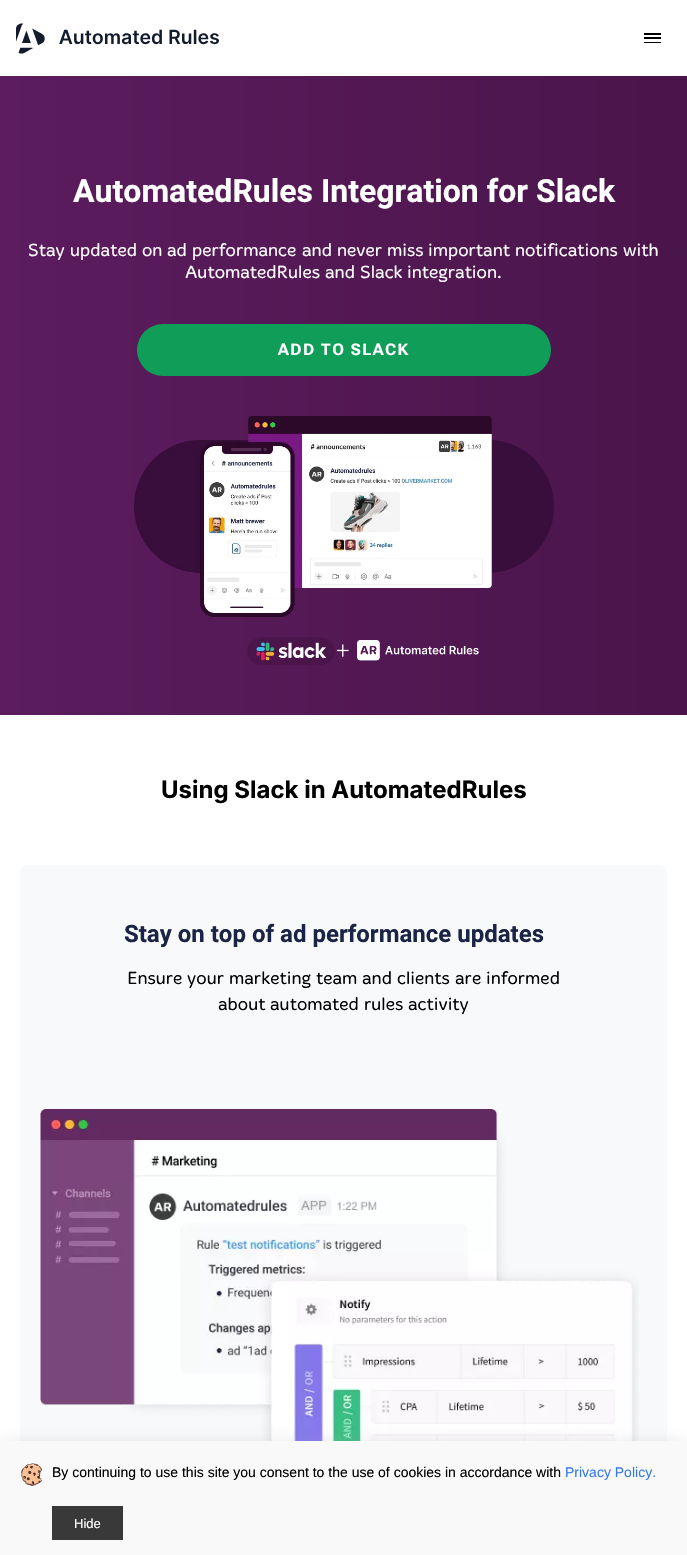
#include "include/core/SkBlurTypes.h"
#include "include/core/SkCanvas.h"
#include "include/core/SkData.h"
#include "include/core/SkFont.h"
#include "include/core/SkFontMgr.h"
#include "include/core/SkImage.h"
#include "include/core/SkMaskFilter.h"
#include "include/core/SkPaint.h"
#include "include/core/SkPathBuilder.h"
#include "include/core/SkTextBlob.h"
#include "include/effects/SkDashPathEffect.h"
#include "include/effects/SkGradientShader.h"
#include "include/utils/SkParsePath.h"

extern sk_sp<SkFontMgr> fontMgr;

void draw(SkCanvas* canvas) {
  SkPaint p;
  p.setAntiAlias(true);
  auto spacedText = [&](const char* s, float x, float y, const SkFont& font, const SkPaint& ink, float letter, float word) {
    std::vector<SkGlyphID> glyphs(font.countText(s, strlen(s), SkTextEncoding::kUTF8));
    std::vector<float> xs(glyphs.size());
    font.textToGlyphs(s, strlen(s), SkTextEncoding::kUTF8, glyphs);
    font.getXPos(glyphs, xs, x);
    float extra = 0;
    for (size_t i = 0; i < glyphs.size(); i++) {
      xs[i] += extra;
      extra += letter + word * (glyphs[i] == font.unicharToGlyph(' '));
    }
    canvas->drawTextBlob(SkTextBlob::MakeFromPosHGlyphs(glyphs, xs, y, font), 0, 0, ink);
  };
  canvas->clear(SK_ColorWHITE);
  canvas->drawImageRect(SkImages::DeferredFromEncodedData(SkData::MakeFromFileName("images/1.png")), SkRect::MakeLTRB(16, 23, 219, 54), SkSamplingOptions());
  p.setColor(SK_ColorBLACK);
  canvas->drawRect(SkRect::MakeLTRB(644, 33, 661, 35), p);
  canvas->drawRect(SkRect::MakeLTRB(644, 37, 661, 39), p);
  canvas->drawRect(SkRect::MakeLTRB(644, 42, 661, 43), p);
  {
    const SkColor colors[] = {SkColorSetRGB(92, 28, 94), SkColorSetRGB(74, 21, 75)};
    const float stops[] = {0, 1};
    const SkPoint ends[] = {{0, 393}, {687, 393}};
    p.setShader(SkGradientShader::MakeLinear(ends, colors, stops, 2, SkTileMode::kClamp));
    p.setAlpha(255);
  }
  canvas->drawRect(SkRect::MakeLTRB(0, 76, 687, 715), p);
  p.setShader(nullptr);
  p.setColor(SkColorSetRGB(15, 157, 88));
  canvas->drawRoundRect(SkRect::MakeLTRB(137, 324, 551, 376), 26, 26, p);
  canvas->drawImageRect(SkImages::DeferredFromEncodedData(SkData::MakeFromFileName("images/2.png")), SkRect::MakeLTRB(134, 416, 554, 665), SkSamplingOptions());
  p.setColor(SkColorSetRGB(248, 249, 251));
  canvas->drawRoundRect(SkRect::MakeLTRB(20, 865, 667, 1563), 8, 8, p);
  canvas->drawImageRect(SkImages::DeferredFromEncodedData(SkData::MakeFromFileName("images/3.png")), SkRect::MakeLTRB(40, 1109, 639, 1441), SkSamplingOptions());
  p.setColor(SkColorSetARGB(64, 170, 170, 170));
  p.setMaskFilter(SkMaskFilter::MakeBlur(kNormal_SkBlurStyle, 7.5f));
  canvas->drawRect(SkRect::MakeLTRB(0, 1441, 687, 1555), p);
  p.setMaskFilter(nullptr);
  p.setColor(SkColorSetRGB(249, 249, 249));
  canvas->drawRect(SkRect::MakeLTRB(0, 1441, 687, 1555), p);
  canvas->drawImageRect(SkImages::DeferredFromEncodedData(SkData::MakeFromFileName("images/4.png")), SkRect::MakeLTRB(21, 1463, 43, 1486), SkSamplingOptions());
  p.setColor(SkColorSetRGB(57, 57, 57));
  canvas->drawRect(SkRect::MakeLTRB(52, 1506, 123, 1540), p);
  SkFont font1(fontMgr->matchFamilyStyle("Roboto", SkFontStyle::Bold()), 32);
  font1.setSubpixel(true);
  p.setColor(SK_ColorWHITE);
  canvas->drawString("AutomatedRules Integration for Slack", 73, 202, font1, p);
  SkFont font2(fontMgr->matchFamilyStyle("Merge One", SkFontStyle::Normal()), 18);
  font2.setSubpixel(true);
  canvas->drawString("Stay", 28, 256, font2, p);
  canvas->drawString("updated", 70, 256, font2, p);
  canvas->drawString("on", 142, 256, font2, p);
  canvas->drawString("ad", 167, 256, font2, p);
  canvas->drawString("performance", 192, 256, font2, p);
  canvas->drawString("and", 302, 256, font2, p);
  canvas->drawString("never", 337, 256, font2, p);
  canvas->drawString("miss", 387, 256, font2, p);
  canvas->drawString("important", 428, 256, font2, p);
  canvas->drawString("notifications", 515, 256, font2, p);
  canvas->drawString("with", 623, 256, font2, p);
  canvas->drawString("AutomatedRules", 185, 278, font2, p);
  canvas->drawString("and", 325, 278, font2, p);
  canvas->drawString("Slack", 360, 278, font2, p);
  canvas->drawString("integration.", 407, 278, font2, p);
  SkFont font3(fontMgr->matchFamilyStyle("Roboto Flex", SkFontStyle::Bold()), 16);
  font3.setSubpixel(true);
  spacedText("ADD TO SLACK", 278, 355, font3, p, 1.5f, 0);
  SkFont font4(fontMgr->matchFamilyStyle("Inter", SkFontStyle::Bold()), 24);
  font4.setSubpixel(true);
  p.setColor(SK_ColorBLACK);
  canvas->drawString("Using Slack in AutomatedRules", 161, 798, font4, p);
  SkFont font5(fontMgr->matchFamilyStyle("Roboto", SkFontStyle::Bold()), 24);
  font5.setSubpixel(true);
  p.setColor(SkColorSetRGB(28, 36, 69));
  canvas->drawString("Stay on top of ad performance updates", 124, 942, font5, p);
  p.setColor(SK_ColorBLACK);
  canvas->drawString("Ensure", 127, 984, font2, p);
  canvas->drawString("your", 187, 984, font2, p);
  canvas->drawString("marketing", 229, 984, font2, p);
  canvas->drawString("team", 316, 984, font2, p);
  canvas->drawString("and", 362, 984, font2, p);
  canvas->drawString("clients", 397, 984, font2, p);
  canvas->drawString("are", 455, 984, font2, p);
  canvas->drawString("informed", 486, 984, font2, p);
  canvas->drawString("about", 218, 1010, font2, p);
  canvas->drawString("automated", 270, 1010, font2, p);
  canvas->drawString("rules", 364, 1010, font2, p);
  canvas->drawString("activity", 408, 1010, font2, p);
  SkFont font6(fontMgr->matchFamilyStyle("Liberation Sans", SkFontStyle::Normal()), 14);
  font6.setSubpixel(true);
  canvas->drawString("By continuing to use this site you consent to the use of cookies in accordance with", 52, 1477, font6, p);
  p.setColor(SkColorSetRGB(54, 121, 234));
  canvas->drawString("Privacy Policy.", 565, 1477, font6, p);
  SkFont font7(fontMgr->matchFamilyStyle("Liberation Sans", SkFontStyle::Normal()), 13);
  font7.setSubpixel(true);
  p.setColor(SK_ColorWHITE);
  canvas->drawString("Hide", 74, 1528, font7, p);
}
